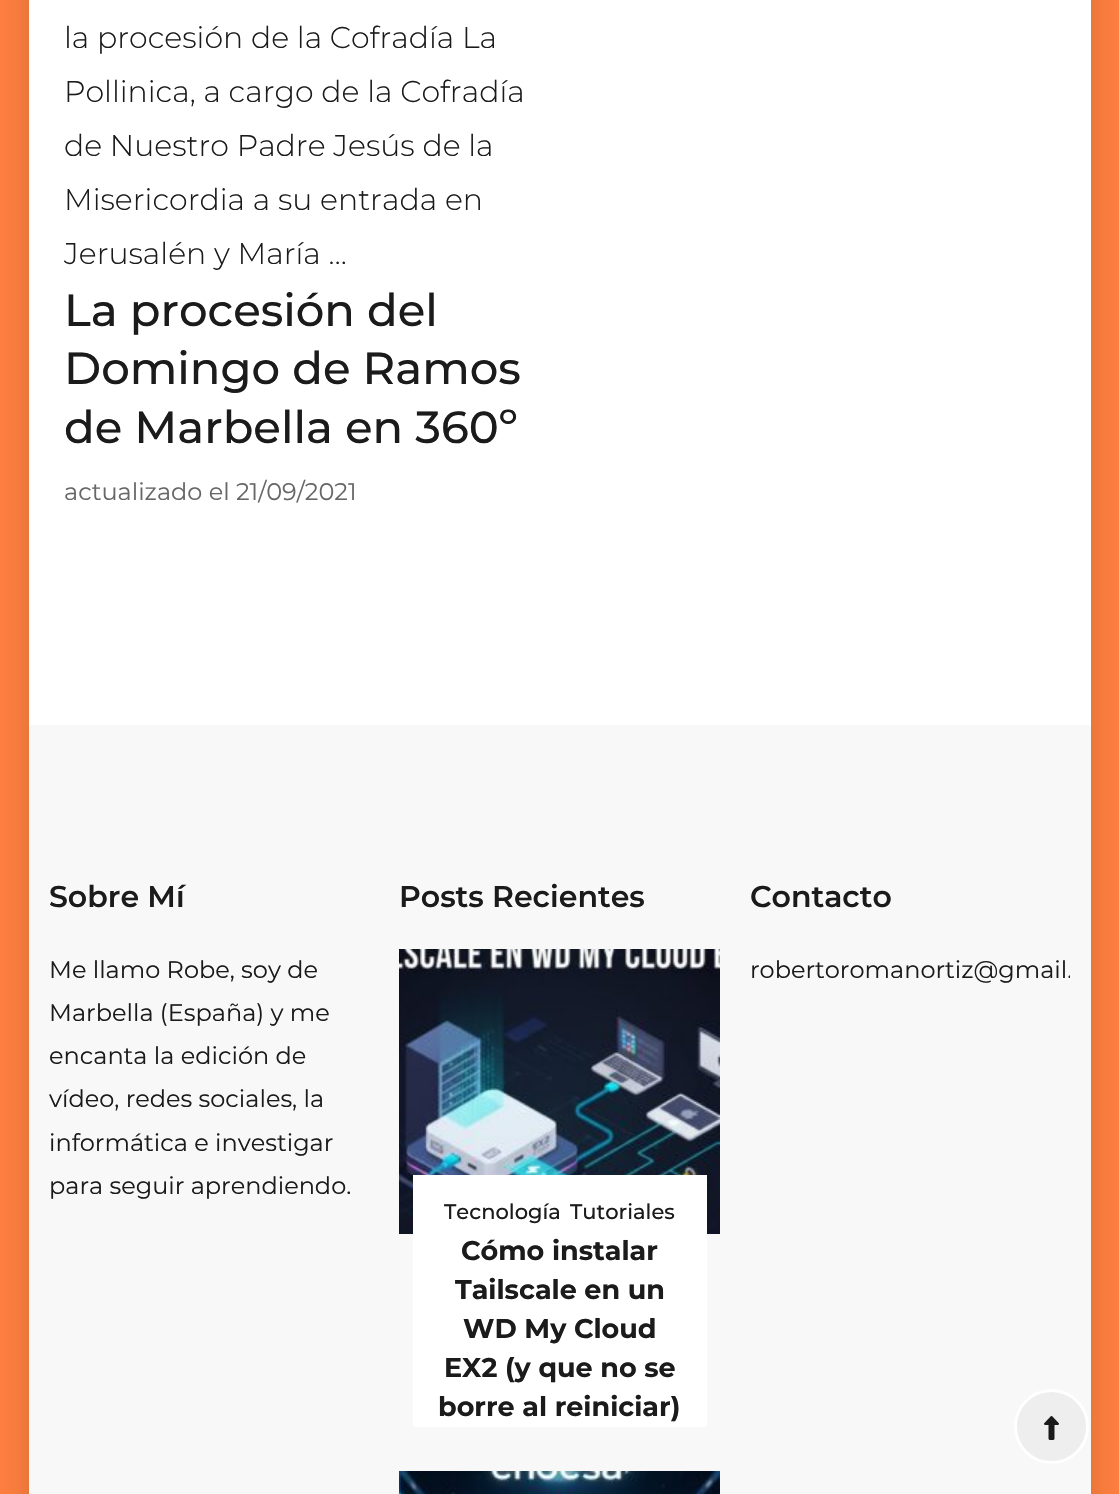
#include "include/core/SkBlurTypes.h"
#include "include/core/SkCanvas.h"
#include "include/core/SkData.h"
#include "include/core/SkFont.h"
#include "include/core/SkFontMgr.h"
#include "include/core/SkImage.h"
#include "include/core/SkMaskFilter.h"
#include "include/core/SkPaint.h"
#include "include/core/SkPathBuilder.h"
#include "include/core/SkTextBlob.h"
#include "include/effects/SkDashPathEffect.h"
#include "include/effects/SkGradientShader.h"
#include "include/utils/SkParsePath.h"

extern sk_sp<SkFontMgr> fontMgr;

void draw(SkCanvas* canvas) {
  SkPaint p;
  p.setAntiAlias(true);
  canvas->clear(SkColorSetRGB(255, 127, 63));
  p.setColor(SkColorSetARGB(38, 0, 0, 0));
  p.setMaskFilter(SkMaskFilter::MakeBlur(kNormal_SkBlurStyle, 15));
  canvas->drawRect(SkRect::MakeLTRB(29, -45, 1091, 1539), p);
  p.setMaskFilter(nullptr);
  p.setColor(SK_ColorWHITE);
  canvas->drawRect(SkRect::MakeLTRB(29, 0, 1091, 725), p);
  p.setColor(SkColorSetRGB(248, 248, 248));
  canvas->drawRect(SkRect::MakeLTRB(29, 725, 1091, 1494), p);
  canvas->drawImageRect(SkImages::DeferredFromEncodedData(SkData::MakeFromFileName("images/1.png")), SkRect::MakeLTRB(399, 949, 720, 1234), SkSamplingOptions());
  p.setColor(SK_ColorWHITE);
  canvas->drawRect(SkRect::MakeLTRB(413, 1175, 707, 1427), p);
  canvas->drawImageRect(SkImages::DeferredFromEncodedData(SkData::MakeFromFileName("images/2.png")), SkRect::MakeLTRB(399, 1471, 720, 1494), SkSamplingOptions());
  p.setColor(SkColorSetRGB(238, 238, 238));
  canvas->drawCircle(1051.5f, 1426.5f, 36, p);
  p.setStyle(SkPaint::kStroke_Style);
  p.setStrokeWidth(3);
  p.setColor(SK_ColorWHITE);
  canvas->drawCircle(1051.5f, 1426.5f, 36, p);
  canvas->drawImageRect(SkImages::DeferredFromEncodedData(SkData::MakeFromFileName("images/3.png")), SkRect::MakeLTRB(1044, 1416, 1059, 1440), SkSamplingOptions());
  SkFont font1(fontMgr->matchFamilyStyle("Montserrat", SkFontStyle(300, SkFontStyle::kNormal_Width, SkFontStyle::kUpright_Slant)), 30);
  font1.setSubpixel(true);
  p.setStyle(SkPaint::kFill_Style);
  p.setColor(SkColorSetRGB(28, 27, 27));
  canvas->drawString("la procesión de la Cofradía La", 64, 48, font1, p);
  canvas->drawString("Pollinica, a cargo de la Cofradía", 64, 102, font1, p);
  canvas->drawString("de Nuestro Padre Jesús de la", 64, 156, font1, p);
  canvas->drawString("Misericordia a su entrada en", 64, 210, font1, p);
  canvas->drawString("Jerusalén y María …", 64, 264, font1, p);
  SkFont font2(fontMgr->matchFamilyStyle("Montserrat", SkFontStyle(500, SkFontStyle::kNormal_Width, SkFontStyle::kUpright_Slant)), 45);
  font2.setSubpixel(true);
  canvas->drawString("La procesión del", 64, 326, font2, p);
  canvas->drawString("Domingo de Ramos", 64, 384, font2, p);
  canvas->drawString("de Marbella en 360º", 64, 443, font2, p);
  SkFont font3(fontMgr->matchFamilyStyle("Montserrat", SkFontStyle::Normal()), 24);
  font3.setSubpixel(true);
  p.setColor(SkColorSetRGB(103, 103, 103));
  canvas->drawString("actualizado el 21/09/2021", 64, 500, font3, p);
  SkFont font4(fontMgr->matchFamilyStyle("Montserrat", SkFontStyle(600, SkFontStyle::kNormal_Width, SkFontStyle::kUpright_Slant)), 30);
  font4.setSubpixel(true);
  p.setColor(SkColorSetRGB(28, 27, 27));
  canvas->drawString("Sobre Mí", 49, 907, font4, p);
  canvas->drawString("Me llamo Robe, soy de", 49, 978, font3, p);
  canvas->drawString("Marbella (España) y me", 49, 1021, font3, p);
  canvas->drawString("encanta la edición de", 49, 1064, font3, p);
  canvas->drawString("vídeo, redes sociales, la", 49, 1107, font3, p);
  canvas->drawString("informática e investigar", 49, 1151, font3, p);
  canvas->drawString("para seguir aprendiendo.", 49, 1194, font3, p);
  canvas->drawString("Posts Recientes", 399, 907, font4, p);
  SkFont font5(fontMgr->matchFamilyStyle("Montserrat", SkFontStyle(500, SkFontStyle::kNormal_Width, SkFontStyle::kUpright_Slant)), 21);
  font5.setSubpixel(true);
  canvas->drawString("Tecnología", 444, 1219, font5, p);
  canvas->drawString("Tutoriales", 570, 1219, font5, p);
  SkFont font6(fontMgr->matchFamilyStyle("Montserrat", SkFontStyle::Bold()), 27);
  font6.setSubpixel(true);
  canvas->drawString("Cómo instalar", 461, 1260, font6, p);
  canvas->drawString("Tailscale en un", 455, 1299, font6, p);
  canvas->drawString("WD My Cloud", 463, 1338, font6, p);
  canvas->drawString("EX2 (y que no se", 444, 1377, font6, p);
  canvas->drawString("borre al reiniciar)", 438, 1416, font6, p);
  canvas->drawString("Contacto", 750, 907, font4, p);
  canvas->save();
  canvas->clipRect(SkRect::MakeLTRB(750, 875, 1070, 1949));
  canvas->drawString("robertoromanortiz@gmail.", 750, 978, font3, p);
  canvas->restore();
}
